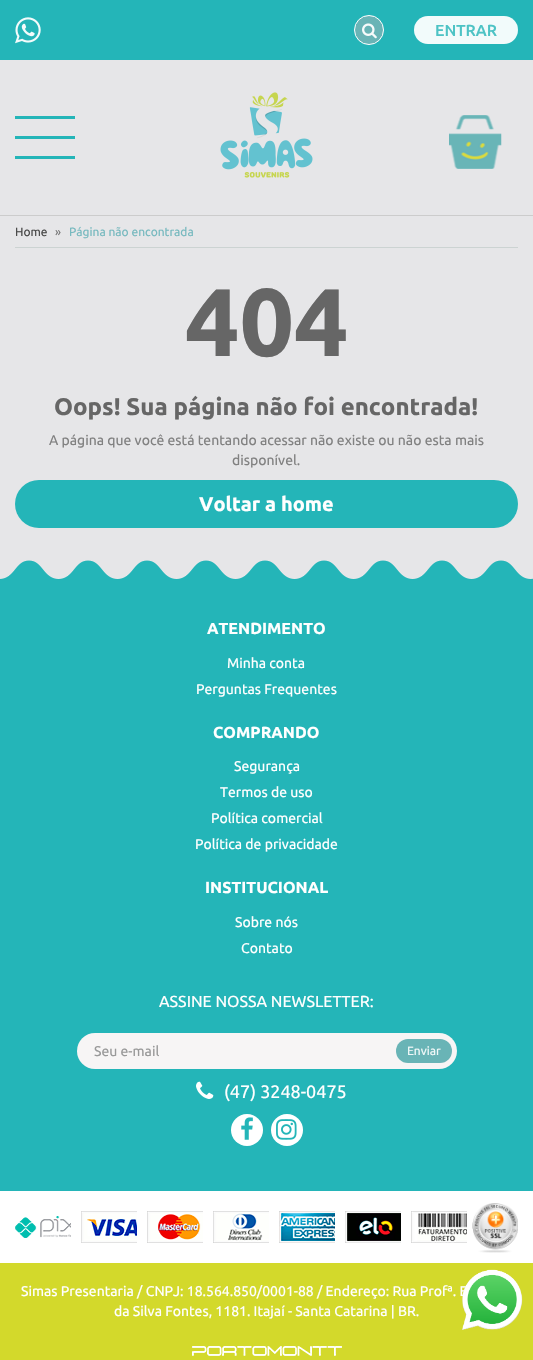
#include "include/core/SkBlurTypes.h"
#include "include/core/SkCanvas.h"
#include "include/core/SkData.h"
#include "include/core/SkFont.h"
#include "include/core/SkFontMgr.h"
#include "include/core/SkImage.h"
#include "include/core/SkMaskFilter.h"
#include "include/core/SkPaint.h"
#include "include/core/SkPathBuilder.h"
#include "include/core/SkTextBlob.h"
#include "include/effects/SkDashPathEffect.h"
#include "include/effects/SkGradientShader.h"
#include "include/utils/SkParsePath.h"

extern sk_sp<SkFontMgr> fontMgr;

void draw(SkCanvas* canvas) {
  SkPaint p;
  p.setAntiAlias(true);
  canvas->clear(SkColorSetRGB(230, 230, 232));
  p.setColor(SkColorSetRGB(36, 181, 184));
  canvas->drawRect(SkRect::MakeLTRB(0, 0, 533, 60), p);
  canvas->drawImageRect(SkImages::DeferredFromEncodedData(SkData::MakeFromFileName("images/1.png")), SkRect::MakeLTRB(15, 17, 41, 44), SkSamplingOptions());
  p.setColor(SkColorSetRGB(105, 180, 182));
  canvas->drawCircle(369, 30, 14.5f, p);
  p.setStyle(SkPaint::kStroke_Style);
  p.setStrokeWidth(1);
  p.setColor(SK_ColorWHITE);
  canvas->drawCircle(369, 30, 14.5f, p);
  canvas->drawImageRect(SkImages::DeferredFromEncodedData(SkData::MakeFromFileName("images/2.png")), SkRect::MakeLTRB(362, 23, 377, 39), SkSamplingOptions());
  p.setStyle(SkPaint::kFill_Style);
  p.setColor(SkColorSetRGB(242, 251, 251));
  canvas->drawRoundRect(SkRect::MakeLTRB(414, 16, 518, 44), 14, 14, p);
  p.setColor(SkColorSetRGB(204, 204, 204));
  canvas->drawRect(SkRect::MakeLTRB(0, 215, 533, 216), p);
  p.setColor(SkColorSetRGB(36, 181, 184));
  canvas->drawRect(SkRect::MakeLTRB(15, 116, 75, 119), p);
  canvas->drawRect(SkRect::MakeLTRB(15, 136, 75, 139), p);
  canvas->drawRect(SkRect::MakeLTRB(15, 156, 75, 159), p);
  canvas->drawImageRect(SkImages::DeferredFromEncodedData(SkData::MakeFromFileName("images/3.png")), SkRect::MakeLTRB(220, 92, 313, 178), SkSamplingOptions());
  canvas->drawImageRect(SkImages::DeferredFromEncodedData(SkData::MakeFromFileName("images/4.png")), SkRect::MakeLTRB(449, 115, 502, 169), SkSamplingOptions());
  p.setColor(SkColorSetRGB(204, 211, 210));
  canvas->drawRect(SkRect::MakeLTRB(15, 247, 518, 248), p);
  p.setColor(SkColorSetRGB(36, 181, 184));
  canvas->drawRoundRect(SkRect::MakeLTRB(15, 480, 518, 528), 24, 24, p);
  canvas->drawRect(SkRect::MakeLTRB(0, 603, 533, 1191), p);
  canvas->drawImageRect(SkImages::DeferredFromEncodedData(SkData::MakeFromFileName("images/5.png")), SkRect::MakeLTRB(0, 560, 533, 603), SkSamplingOptions());
  p.setColor(SkColorSetRGB(247, 245, 245));
  canvas->drawRoundRect(SkRect::MakeLTRB(77, 1033, 457, 1069), 18, 18, p);
  p.setColor(SkColorSetRGB(105, 180, 182));
  canvas->drawRoundRect(SkRect::MakeLTRB(396, 1039, 452, 1063), 12, 12, p);
  canvas->drawImageRect(SkImages::DeferredFromEncodedData(SkData::MakeFromFileName("images/6.png")), SkRect::MakeLTRB(196, 1081, 214, 1099), SkSamplingOptions());
  p.setColor(SK_ColorWHITE);
  canvas->drawCircle(247, 1130, 16, p);
  canvas->drawImageRect(SkImages::DeferredFromEncodedData(SkData::MakeFromFileName("images/7.png")), SkRect::MakeLTRB(241, 1117, 253, 1140), SkSamplingOptions());
  canvas->drawCircle(287, 1130, 16, p);
  canvas->drawImageRect(SkImages::DeferredFromEncodedData(SkData::MakeFromFileName("images/8.png")), SkRect::MakeLTRB(276, 1119, 297, 1140), SkSamplingOptions());
  canvas->drawRect(SkRect::MakeLTRB(0, 1191, 533, 1263), p);
  canvas->drawImageRect(SkImages::DeferredFromEncodedData(SkData::MakeFromFileName("images/9.png")), SkRect::MakeLTRB(15, 1216, 71, 1238), SkSamplingOptions());
  canvas->drawImageRect(SkImages::DeferredFromEncodedData(SkData::MakeFromFileName("images/10.png")), SkRect::MakeLTRB(81, 1211, 137, 1243), SkSamplingOptions());
  canvas->drawImageRect(SkImages::DeferredFromEncodedData(SkData::MakeFromFileName("images/11.png")), SkRect::MakeLTRB(147, 1211, 203, 1243), SkSamplingOptions());
  canvas->drawImageRect(SkImages::DeferredFromEncodedData(SkData::MakeFromFileName("images/12.png")), SkRect::MakeLTRB(213, 1211, 269, 1243), SkSamplingOptions());
  canvas->drawImageRect(SkImages::DeferredFromEncodedData(SkData::MakeFromFileName("images/13.png")), SkRect::MakeLTRB(279, 1211, 335, 1243), SkSamplingOptions());
  canvas->drawImageRect(SkImages::DeferredFromEncodedData(SkData::MakeFromFileName("images/14.png")), SkRect::MakeLTRB(345, 1211, 401, 1243), SkSamplingOptions());
  canvas->drawImageRect(SkImages::DeferredFromEncodedData(SkData::MakeFromFileName("images/15.png")), SkRect::MakeLTRB(411, 1211, 467, 1243), SkSamplingOptions());
  canvas->drawImageRect(SkImages::DeferredFromEncodedData(SkData::MakeFromFileName("images/16.png")), SkRect::MakeLTRB(472, 1203, 518, 1253), SkSamplingOptions());
  p.setColor(SkColorSetRGB(211, 217, 43));
  canvas->drawRect(SkRect::MakeLTRB(0, 1263, 533, 1360), p);
  canvas->drawImageRect(SkImages::DeferredFromEncodedData(SkData::MakeFromFileName("images/17.png")), SkRect::MakeLTRB(192, 1346, 342, 1356), SkSamplingOptions());
  SkFont font1(fontMgr->matchFamilyStyle("Ubuntu", SkFontStyle(500, SkFontStyle::kNormal_Width, SkFontStyle::kUpright_Slant)), 16);
  font1.setSubpixel(true);
  p.setColor(SkColorSetRGB(77, 195, 197));
  canvas->drawString("ENTRAR", 435, 36, font1, p);
  SkFont font2(fontMgr->matchFamilyStyle("Ubuntu", SkFontStyle::Normal()), 12);
  font2.setSubpixel(true);
  p.setColor(SkColorSetRGB(73, 73, 73));
  canvas->drawString("Home", 15, 236, font2, p);
  p.setColor(SkColorSetRGB(120, 120, 121));
  canvas->drawString("»", 55, 236, font2, p);
  p.setColor(SkColorSetRGB(119, 185, 191));
  canvas->drawString("Página não encontrada", 69, 236, font2, p);
  SkFont font3(fontMgr->matchFamilyStyle("Ubuntu", SkFontStyle::Bold()), 96);
  font3.setSubpixel(true);
  p.setColor(SkColorSetRGB(102, 102, 102));
  canvas->drawString("404", 185, 356, font3, p);
  SkFont font4(fontMgr->matchFamilyStyle("Ubuntu", SkFontStyle::Bold()), 24);
  font4.setSubpixel(true);
  canvas->drawString("Oops! Sua página não foi encontrada!", 54, 415, font4, p);
  SkFont font5(fontMgr->matchFamilyStyle("Ubuntu", SkFontStyle::Normal()), 14);
  font5.setSubpixel(true);
  p.setColor(SkColorSetRGB(129, 129, 129));
  canvas->drawString("A página que você está tentando acessar não existe ou não esta mais", 49, 445, font5, p);
  canvas->drawString("disponível.", 232, 465, font5, p);
  SkFont font6(fontMgr->matchFamilyStyle("Ubuntu", SkFontStyle::Bold()), 20);
  font6.setSubpixel(true);
  p.setColor(SK_ColorWHITE);
  canvas->drawString("Voltar a home", 199, 511, font6, p);
  SkFont font7(fontMgr->matchFamilyStyle("Ubuntu", SkFontStyle::Bold()), 16);
  font7.setSubpixel(true);
  canvas->drawString("ATENDIMENTO", 207, 634, font7, p);
  canvas->drawString("Minha conta", 227, 668, font5, p);
  canvas->drawString("Perguntas Frequentes", 196, 694, font5, p);
  canvas->drawString("COMPRANDO", 213, 738, font7, p);
  canvas->drawString("Segurança", 234, 771, font5, p);
  canvas->drawString("Termos de uso", 220, 797, font5, p);
  canvas->drawString("Política comercial", 211, 823, font5, p);
  canvas->drawString("Política de privacidade", 195, 849, font5, p);
  canvas->drawString("INSTITUCIONAL", 205, 893, font7, p);
  canvas->drawString("Sobre nós", 235, 927, font5, p);
  canvas->drawString("Contato", 241, 953, font5, p);
  SkFont font8(fontMgr->matchFamilyStyle("Ubuntu", SkFontStyle::Normal()), 16);
  font8.setSubpixel(true);
  canvas->drawString("ASSINE NOSSA NEWSLETTER:", 159, 1007, font8, p);
  p.setColor(SkColorSetRGB(153, 153, 153));
  canvas->drawString("Seu e-mail", 94, 1056, font5, p);
  p.setColor(SkColorSetRGB(240, 248, 248));
  canvas->drawString("Enviar", 407, 1055, font2, p);
  SkFont font9(fontMgr->matchFamilyStyle("Ubuntu", SkFontStyle::Normal()), 18);
  font9.setSubpixel(true);
  p.setColor(SK_ColorWHITE);
  canvas->drawString("(47) 3248-0475", 224, 1098, font9, p);
  canvas->drawString("Simas Presentaria / CNPJ: 18.564.850/0001-88 / Endereço: Rua Profª. E", 21, 1296, font5, p);
  canvas->drawString("da Silva Fontes, 1181. Itajaí - Santa Catarina | BR.", 114, 1316, font5, p);
  canvas->drawImageRect(SkImages::DeferredFromEncodedData(SkData::MakeFromFileName("images/18.png")), SkRect::MakeLTRB(462, 1269, 523, 1330), SkSamplingOptions());
}
